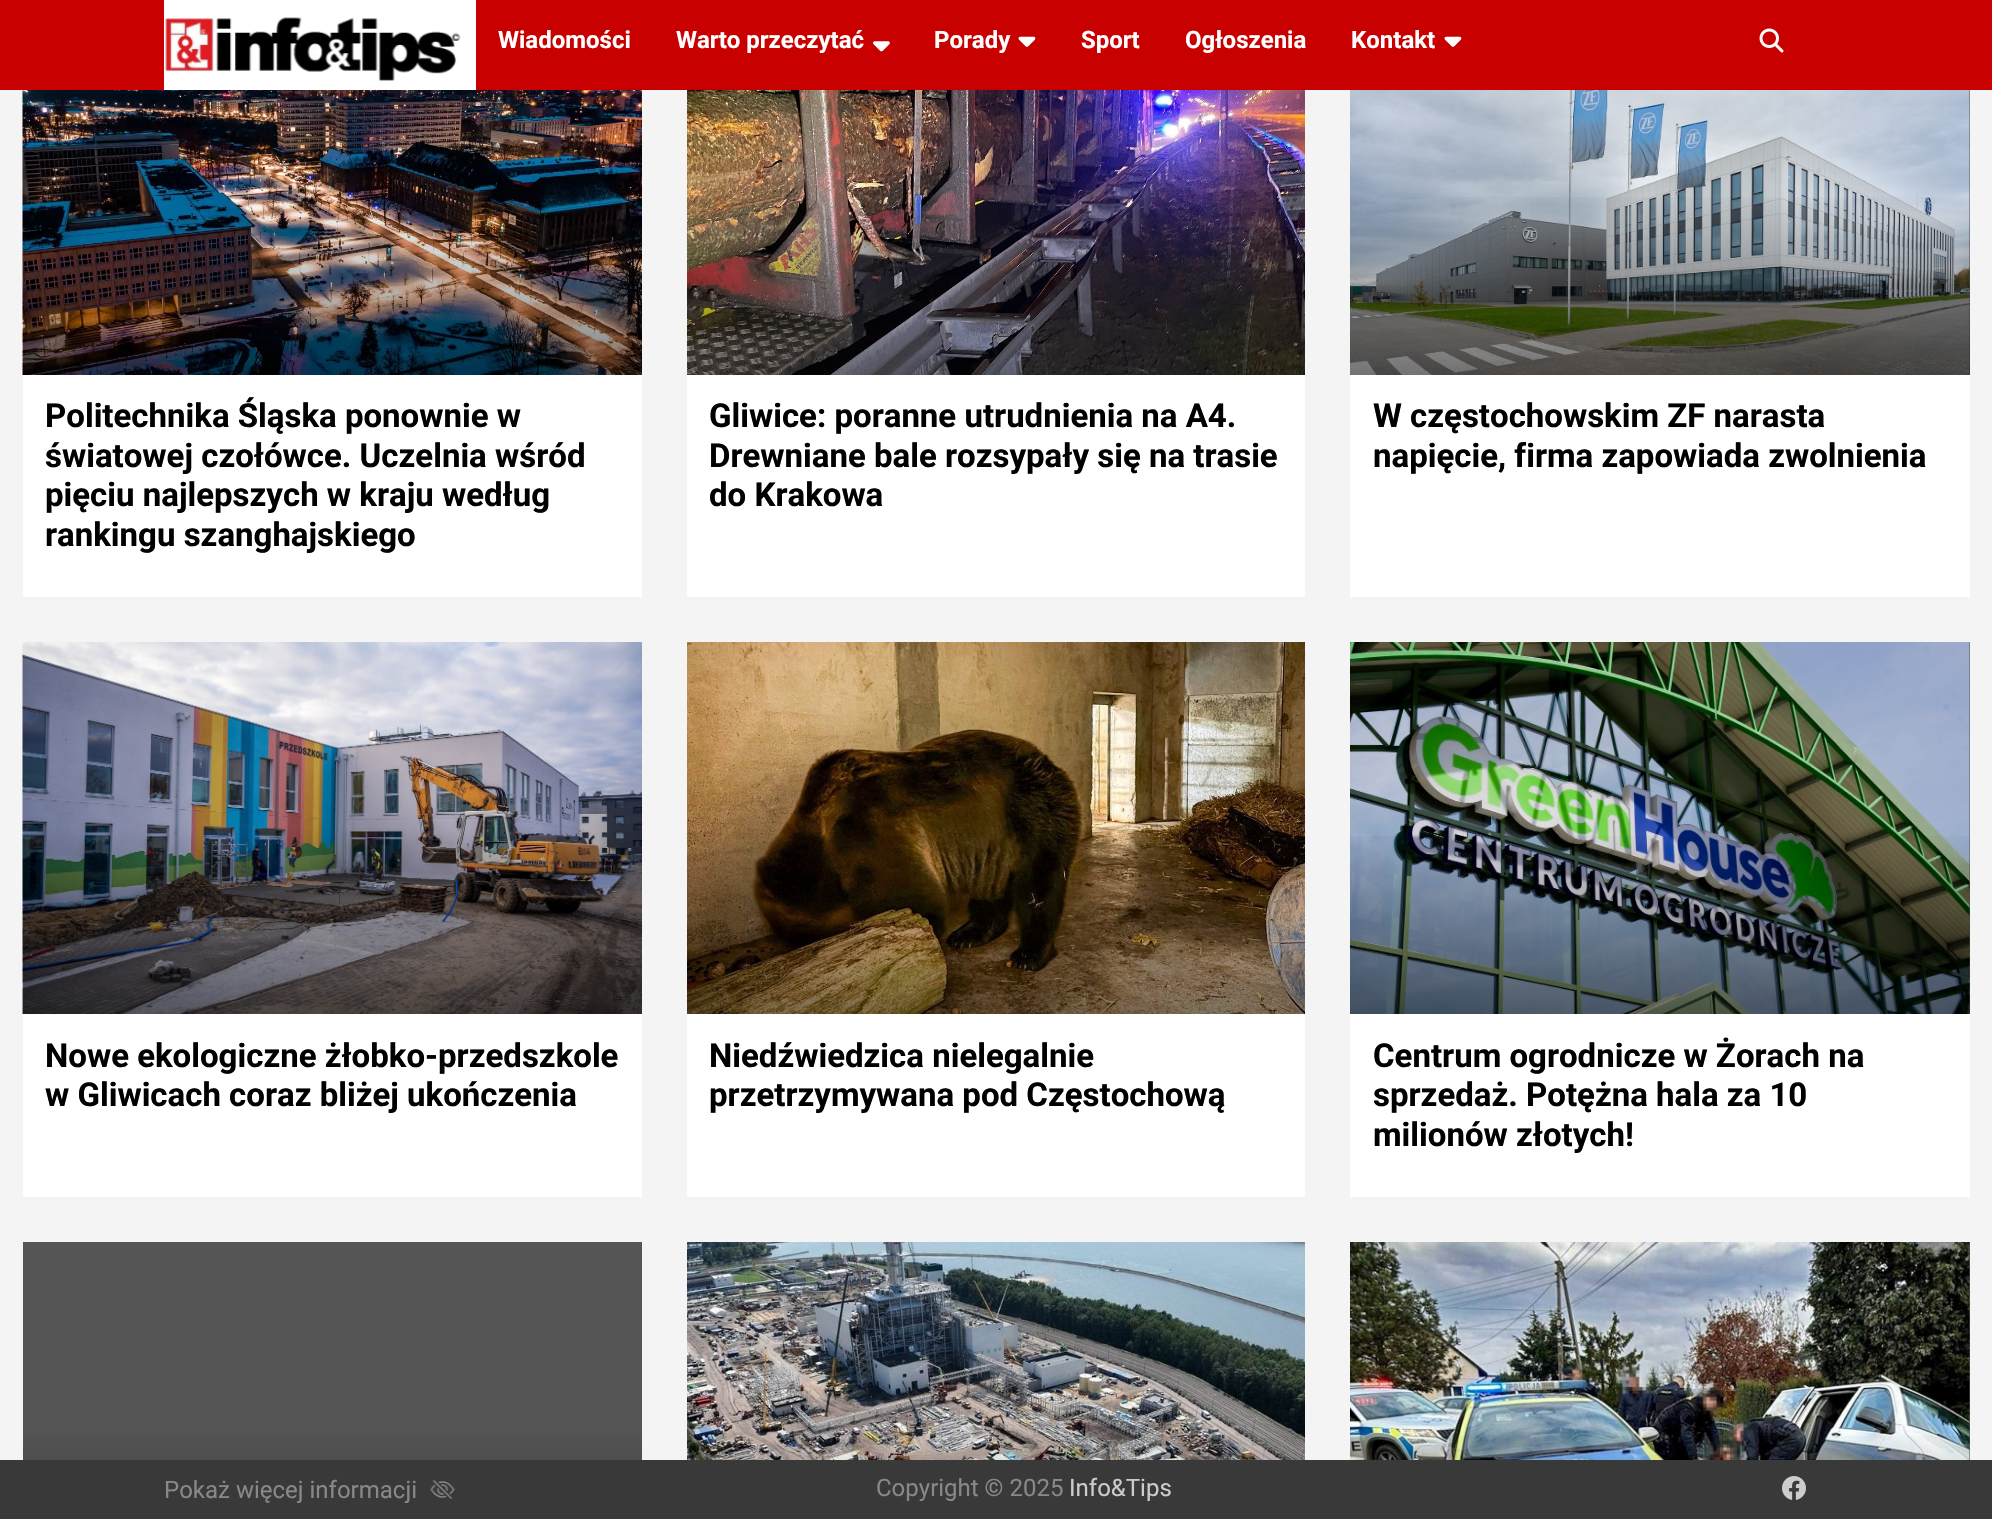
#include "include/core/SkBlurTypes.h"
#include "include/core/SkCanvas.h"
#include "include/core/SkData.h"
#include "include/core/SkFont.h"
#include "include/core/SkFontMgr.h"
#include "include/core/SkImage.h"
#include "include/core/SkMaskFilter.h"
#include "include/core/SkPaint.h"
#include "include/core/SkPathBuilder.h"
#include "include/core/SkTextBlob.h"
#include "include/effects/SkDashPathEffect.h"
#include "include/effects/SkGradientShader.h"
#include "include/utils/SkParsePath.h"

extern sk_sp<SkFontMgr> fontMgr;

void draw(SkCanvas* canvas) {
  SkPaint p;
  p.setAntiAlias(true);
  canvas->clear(SkColorSetRGB(244, 244, 244));
  p.setColor(SkColorSetRGB(200, 0, 0));
  canvas->drawRect(SkRect::MakeLTRB(0, 0, 1992, 90), p);
  p.setColor(SK_ColorWHITE);
  canvas->drawRect(SkRect::MakeLTRB(164, 0, 476, 90), p);
  canvas->drawImageRect(SkImages::DeferredFromEncodedData(SkData::MakeFromFileName("images/1.png")), SkRect::MakeLTRB(163, 17, 461, 81), SkSamplingOptions());
  canvas->drawImageRect(SkImages::DeferredFromEncodedData(SkData::MakeFromFileName("images/2.png")), SkRect::MakeLTRB(873, 41, 890, 52), SkSamplingOptions());
  canvas->drawImageRect(SkImages::DeferredFromEncodedData(SkData::MakeFromFileName("images/3.png")), SkRect::MakeLTRB(1018, 36, 1036, 47), SkSamplingOptions());
  canvas->drawImageRect(SkImages::DeferredFromEncodedData(SkData::MakeFromFileName("images/3.png")), SkRect::MakeLTRB(1444, 36, 1462, 47), SkSamplingOptions());
  canvas->drawImageRect(SkImages::DeferredFromEncodedData(SkData::MakeFromFileName("images/4.png")), SkRect::MakeLTRB(1759, 28, 1784, 53), SkSamplingOptions());
  canvas->drawRect(SkRect::MakeLTRB(23, 375, 642, 597), p);
  canvas->drawImageRect(SkImages::DeferredFromEncodedData(SkData::MakeFromFileName("images/5.png")), SkRect::MakeLTRB(22, 90, 642, 375), SkSamplingOptions());
  canvas->drawRect(SkRect::MakeLTRB(687, 375, 1305, 597), p);
  canvas->drawImageRect(SkImages::DeferredFromEncodedData(SkData::MakeFromFileName("images/6.png")), SkRect::MakeLTRB(687, 90, 1305, 375), SkSamplingOptions());
  canvas->drawRect(SkRect::MakeLTRB(1350, 375, 1970, 597), p);
  p.setColor(SkColorSetRGB(85, 85, 85));
  canvas->drawRect(SkRect::MakeLTRB(1969, 90, 1970, 375), p);
  canvas->drawImageRect(SkImages::DeferredFromEncodedData(SkData::MakeFromFileName("images/7.png")), SkRect::MakeLTRB(1350, 90, 1970, 375), SkSamplingOptions());
  {
    const SkColor colors[] = {SkColorSetARGB(0, 0, 0, 0), SkColorSetARGB(128, 0, 0, 0)};
    const float stops[] = {0.5f, 1};
    const SkPoint ends[] = {{1660, 2.3f}, {1660, 376}};
    p.setShader(SkGradientShader::MakeLinear(ends, colors, stops, 2, SkTileMode::kClamp));
    p.setAlpha(255);
  }
  canvas->drawRect(SkRect::MakeLTRB(1350, 197, 1970, 375), p);
  p.setShader(nullptr);
  p.setColor(SK_ColorWHITE);
  canvas->drawRect(SkRect::MakeLTRB(23, 1014, 642, 1197), p);
  canvas->drawImageRect(SkImages::DeferredFromEncodedData(SkData::MakeFromFileName("images/8.png")), SkRect::MakeLTRB(22, 642, 642, 1014), SkSamplingOptions());
  canvas->drawRect(SkRect::MakeLTRB(687, 1014, 1305, 1197), p);
  canvas->drawImageRect(SkImages::DeferredFromEncodedData(SkData::MakeFromFileName("images/9.png")), SkRect::MakeLTRB(687, 642, 1305, 1014), SkSamplingOptions());
  canvas->drawRect(SkRect::MakeLTRB(1350, 1014, 1970, 1197), p);
  p.setColor(SkColorSetRGB(85, 85, 85));
  canvas->drawRect(SkRect::MakeLTRB(1969, 642, 1970, 1014), p);
  canvas->drawImageRect(SkImages::DeferredFromEncodedData(SkData::MakeFromFileName("images/10.png")), SkRect::MakeLTRB(1350, 642, 1970, 1014), SkSamplingOptions());
  {
    const SkColor colors[] = {SkColorSetARGB(0, 0, 0, 0), SkColorSetARGB(128, 0, 0, 0)};
    const float stops[] = {0.5f, 1};
    const SkPoint ends[] = {{1660, 641}, {1660, 1015}};
    p.setShader(SkGradientShader::MakeLinear(ends, colors, stops, 2, SkTileMode::kClamp));
    p.setAlpha(255);
  }
  canvas->drawRect(SkRect::MakeLTRB(1350, 836, 1970, 1014), p);
  {
    const SkColor colors[] = {SkColorSetRGB(85, 85, 85), SkColorSetRGB(43, 43, 43)};
    const float stops[] = {0.5f, 1};
    const SkPoint ends[] = {{332, 1241}, {332, 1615}};
    p.setShader(SkGradientShader::MakeLinear(ends, colors, stops, 2, SkTileMode::kClamp));
    p.setAlpha(255);
  }
  canvas->drawRect(SkRect::MakeLTRB(23, 1242, 642, 1460), p);
  canvas->drawImageRect(SkImages::DeferredFromEncodedData(SkData::MakeFromFileName("images/11.png")), SkRect::MakeLTRB(687, 1242, 1305, 1460), SkSamplingOptions());
  p.setShader(nullptr);
  p.setColor(SkColorSetRGB(85, 85, 85));
  canvas->drawRect(SkRect::MakeLTRB(1969, 1242, 1970, 1460), p);
  canvas->drawImageRect(SkImages::DeferredFromEncodedData(SkData::MakeFromFileName("images/12.png")), SkRect::MakeLTRB(1350, 1242, 1970, 1460), SkSamplingOptions());
  {
    const SkColor colors[] = {SkColorSetARGB(0, 0, 0, 0), SkColorSetARGB(128, 0, 0, 0)};
    const float stops[] = {0.5f, 1};
    const SkPoint ends[] = {{1660, 1241}, {1660, 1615}};
    p.setShader(SkGradientShader::MakeLinear(ends, colors, stops, 2, SkTileMode::kClamp));
    p.setAlpha(255);
  }
  canvas->drawRect(SkRect::MakeLTRB(1350, 1436, 1970, 1460), p);
  p.setShader(nullptr);
  p.setColor(SkColorSetRGB(57, 57, 57));
  canvas->drawRect(SkRect::MakeLTRB(0, 1460, 1992, 1519), p);
  canvas->drawImageRect(SkImages::DeferredFromEncodedData(SkData::MakeFromFileName("images/13.png")), SkRect::MakeLTRB(430, 1480, 455, 1499), SkSamplingOptions());
  canvas->drawImageRect(SkImages::DeferredFromEncodedData(SkData::MakeFromFileName("images/14.png")), SkRect::MakeLTRB(1782, 1476, 1806, 1500), SkSamplingOptions());
  SkFont font1(fontMgr->matchFamilyStyle("Roboto", SkFontStyle::Bold()), 24);
  font1.setSubpixel(true);
  p.setColor(SK_ColorWHITE);
  canvas->drawString("Wiadomości", 498, 48, font1, p);
  canvas->drawString("Warto przeczytać", 676, 48, font1, p);
  canvas->drawString("Porady", 934, 48, font1, p);
  canvas->drawString("Sport", 1081, 48, font1, p);
  canvas->drawString("Ogłoszenia", 1185, 48, font1, p);
  canvas->drawString("Kontakt", 1351, 48, font1, p);
  SkFont font2(fontMgr->matchFamilyStyle("Roboto", SkFontStyle::Bold()), 33);
  font2.setSubpixel(true);
  p.setColor(SK_ColorBLACK);
  canvas->drawString("Politechnika Śląska ponownie w", 45, 427, font2, p);
  canvas->drawString("światowej czołówce. Uczelnia wśród", 45, 467, font2, p);
  canvas->drawString("pięciu najlepszych w kraju według", 45, 506, font2, p);
  canvas->drawString("rankingu szanghajskiego", 45, 546, font2, p);
  canvas->drawString("Gliwice: poranne utrudnienia na A4.", 709, 427, font2, p);
  canvas->drawString("Drewniane bale rozsypały się na trasie", 709, 467, font2, p);
  canvas->drawString("do Krakowa", 709, 506, font2, p);
  canvas->drawString("W częstochowskim ZF narasta", 1373, 427, font2, p);
  canvas->drawString("napięcie, firma zapowiada zwolnienia", 1373, 467, font2, p);
  canvas->drawString("Nowe ekologiczne żłobko-przedszkole", 45, 1067, font2, p);
  canvas->drawString("w Gliwicach coraz bliżej ukończenia", 45, 1106, font2, p);
  canvas->drawString("Niedźwiedzica nielegalnie", 709, 1067, font2, p);
  canvas->drawString("przetrzymywana pod Częstochową", 709, 1106, font2, p);
  canvas->drawString("Centrum ogrodnicze w Żorach na", 1373, 1067, font2, p);
  canvas->drawString("sprzedaż. Potężna hala za 10", 1373, 1106, font2, p);
  canvas->drawString("milionów złotych!", 1373, 1146, font2, p);
  SkFont font3(fontMgr->matchFamilyStyle("Roboto", SkFontStyle::Normal()), 24);
  font3.setSubpixel(true);
  p.setColor(SkColorSetRGB(136, 136, 136));
  canvas->drawString("Pokaż więcej informacji", 164, 1498, font3, p);
  canvas->drawString("Copyright © 2025", 876, 1496, font3, p);
  p.setColor(SkColorSetRGB(204, 204, 204));
  canvas->drawString("Info&Tips", 1069, 1496, font3, p);
}
